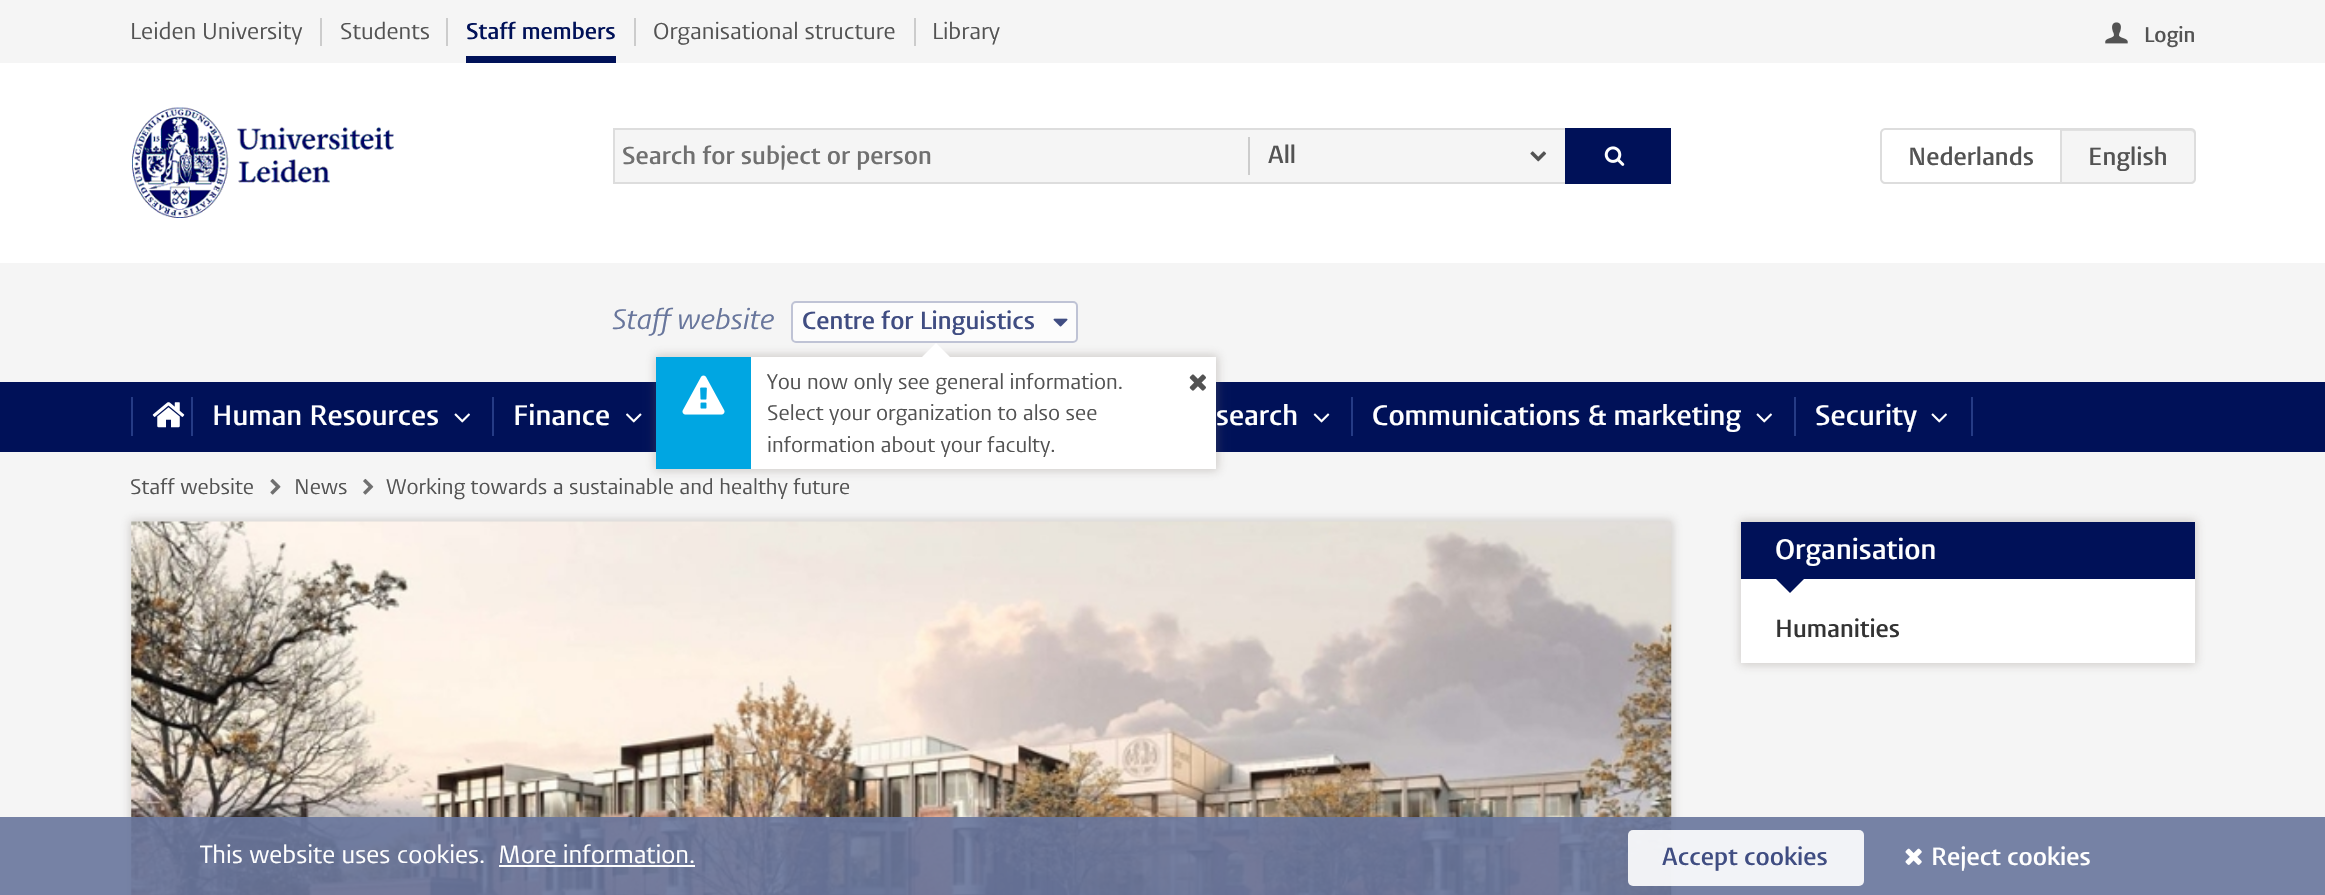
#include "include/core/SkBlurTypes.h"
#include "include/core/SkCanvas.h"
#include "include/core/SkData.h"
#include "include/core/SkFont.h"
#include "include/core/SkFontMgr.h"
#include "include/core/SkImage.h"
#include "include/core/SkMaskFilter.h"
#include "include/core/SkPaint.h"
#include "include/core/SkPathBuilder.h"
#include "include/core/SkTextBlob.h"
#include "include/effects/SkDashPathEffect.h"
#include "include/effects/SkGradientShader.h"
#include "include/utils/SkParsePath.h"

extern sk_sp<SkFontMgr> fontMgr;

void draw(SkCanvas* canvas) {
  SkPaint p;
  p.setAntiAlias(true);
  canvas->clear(SkColorSetRGB(245, 245, 245));
  p.setColor(SK_ColorWHITE);
  canvas->drawRect(SkRect::MakeLTRB(0, 63, 2325, 263), p);
  p.setColor(SkColorSetRGB(204, 204, 204));
  canvas->drawRect(SkRect::MakeLTRB(320, 18, 322, 46), p);
  canvas->drawRect(SkRect::MakeLTRB(446, 18, 448, 46), p);
  canvas->drawRect(SkRect::MakeLTRB(634, 18, 636, 46), p);
  p.setColor(SkColorSetRGB(0, 17, 88));
  canvas->drawRect(SkRect::MakeLTRB(466, 56, 616, 63), p);
  p.setColor(SkColorSetRGB(204, 204, 204));
  canvas->drawRect(SkRect::MakeLTRB(914, 18, 916, 46), p);
  canvas->drawImageRect(SkImages::DeferredFromEncodedData(SkData::MakeFromFileName("images/1.png")), SkRect::MakeLTRB(2105, 22, 2128, 44), SkSamplingOptions());
  canvas->drawImageRect(SkImages::DeferredFromEncodedData(SkData::MakeFromFileName("images/2.png")), SkRect::MakeLTRB(132, 107, 394, 218), SkSamplingOptions());
  p.setColor(SkColorSetRGB(245, 245, 245));
  canvas->drawRect(SkRect::MakeLTRB(615, 130, 1565, 182), p);
  p.setColor(SkColorSetRGB(221, 221, 221));
  canvas->drawRect(SkRect::MakeLTRB(613, 128, 1565, 130), p);
  canvas->drawRect(SkRect::MakeLTRB(613, 182, 1565, 184), p);
  canvas->drawRect(SkRect::MakeLTRB(613, 128, 615, 184), p);
  p.setColor(SkColorSetRGB(204, 204, 204));
  canvas->drawRect(SkRect::MakeLTRB(1248, 137, 1250, 175), p);
  canvas->drawImageRect(SkImages::DeferredFromEncodedData(SkData::MakeFromFileName("images/3.png")), SkRect::MakeLTRB(1530, 151, 1547, 162), SkSamplingOptions());
  p.setColor(SkColorSetRGB(0, 17, 88));
  canvas->drawRect(SkRect::MakeLTRB(1565, 128, 1671, 184), p);
  canvas->drawImageRect(SkImages::DeferredFromEncodedData(SkData::MakeFromFileName("images/4.png")), SkRect::MakeLTRB(1604, 146, 1625, 166), SkSamplingOptions());
  p.setStyle(SkPaint::kStroke_Style);
  p.setStrokeWidth(2);
  p.setColor(SkColorSetRGB(221, 221, 221));
  canvas->drawPath(SkPathBuilder().moveTo(1885, 129).lineTo(2061, 129).lineTo(2061, 183).lineTo(1885, 183).cubicTo(1883, 183, 1881, 181, 1881, 179).lineTo(1881, 133).cubicTo(1881, 131, 1883, 129, 1885, 129).close().detach(), p);
  p.setStyle(SkPaint::kFill_Style);
  p.setColor(SkColorSetRGB(245, 245, 245));
  canvas->drawPath(SkPathBuilder().moveTo(2060, 128).lineTo(2191, 128).cubicTo(2194, 128, 2196, 130, 2196, 133).lineTo(2196, 179).cubicTo(2196, 182, 2194, 184, 2191, 184).lineTo(2060, 184).close().detach(), p);
  p.setColor(SkColorSetRGB(225, 225, 225));
  canvas->drawPath(SkPathBuilder().moveTo(2062, 131).lineTo(2191, 131).cubicTo(2196, 131, 2194, 141, 2194, 142).lineTo(2194, 181).cubicTo(2195, 180, 2195, 179, 2195, 178).lineTo(2195, 134).cubicTo(2195, 132, 2193, 130, 2191, 130).lineTo(2062, 130).close().detach(), p);
  p.setStyle(SkPaint::kStroke_Style);
  p.setColor(SkColorSetRGB(221, 221, 221));
  canvas->drawPath(SkPathBuilder().moveTo(2061, 129).lineTo(2191, 129).cubicTo(2193, 129, 2195, 131, 2195, 133).lineTo(2195, 179).cubicTo(2195, 181, 2193, 183, 2191, 183).lineTo(2061, 183).close().detach(), p);
  p.setStyle(SkPaint::kFill_Style);
  p.setColor(SkColorSetRGB(252, 252, 252));
  canvas->drawRoundRect(SkRect::MakeLTRB(792, 302, 1077, 342), 4, 4, p);
  p.setStyle(SkPaint::kStroke_Style);
  p.setColor(SkColorSetRGB(191, 195, 213));
  canvas->drawRoundRect(SkRect::MakeLTRB(792, 302, 1077, 342), 4, 4, p);
  canvas->drawImageRect(SkImages::DeferredFromEncodedData(SkData::MakeFromFileName("images/5.png")), SkRect::MakeLTRB(1053, 318, 1068, 327), SkSamplingOptions());
  p.setStyle(SkPaint::kFill_Style);
  p.setColor(SkColorSetRGB(0, 17, 88));
  canvas->drawRect(SkRect::MakeLTRB(0, 382, 2325, 452), p);
  canvas->drawImageRect(SkImages::DeferredFromEncodedData(SkData::MakeFromFileName("images/10.png")), SkRect::MakeLTRB(626, 413, 642, 423), SkSamplingOptions());
  p.setColor(SkColorSetARGB(77, 120, 110, 100));
  p.setMaskFilter(SkMaskFilter::MakeBlur(kNormal_SkBlurStyle, 4.5f));
  canvas->drawRect(SkRect::MakeLTRB(655, 355, 1218, 471), p);
  p.setMaskFilter(nullptr);
  p.setColor(SK_ColorWHITE);
  canvas->drawRect(SkRect::MakeLTRB(751, 357, 1216, 469), p);
  canvas->drawPath(SkPathBuilder().moveTo(950, 357).lineTo(922, 357).lineTo(936, 343).close().detach(), p);
  p.setColor(SkColorSetRGB(0, 166, 226));
  canvas->drawRect(SkRect::MakeLTRB(656, 357, 751, 469), p);
  canvas->drawImageRect(SkImages::DeferredFromEncodedData(SkData::MakeFromFileName("images/6.png")), SkRect::MakeLTRB(682, 375, 725, 415), SkSamplingOptions());
  canvas->drawImageRect(SkImages::DeferredFromEncodedData(SkData::MakeFromFileName("images/7.png")), SkRect::MakeLTRB(1189, 374, 1206, 391), SkSamplingOptions());
  p.setColor(SkColorSetRGB(37, 59, 133));
  canvas->drawRect(SkRect::MakeLTRB(131, 397, 133, 436), p);
  canvas->drawImageRect(SkImages::DeferredFromEncodedData(SkData::MakeFromFileName("images/8.png")), SkRect::MakeLTRB(152, 402, 185, 428), SkSamplingOptions());
  canvas->drawRect(SkRect::MakeLTRB(191, 397, 193, 436), p);
  canvas->drawImageRect(SkImages::DeferredFromEncodedData(SkData::MakeFromFileName("images/9.png")), SkRect::MakeLTRB(454, 413, 470, 423), SkSamplingOptions());
  canvas->drawRect(SkRect::MakeLTRB(492, 397, 494, 436), p);
  canvas->drawImageRect(SkImages::DeferredFromEncodedData(SkData::MakeFromFileName("images/11.png")), SkRect::MakeLTRB(1313, 413, 1330, 423), SkSamplingOptions());
  canvas->drawRect(SkRect::MakeLTRB(1351, 397, 1353, 436), p);
  canvas->drawImageRect(SkImages::DeferredFromEncodedData(SkData::MakeFromFileName("images/9.png")), SkRect::MakeLTRB(1756, 413, 1772, 423), SkSamplingOptions());
  canvas->drawRect(SkRect::MakeLTRB(1971, 397, 1973, 436), p);
  canvas->drawRect(SkRect::MakeLTRB(1794, 397, 1796, 436), p);
  canvas->drawImageRect(SkImages::DeferredFromEncodedData(SkData::MakeFromFileName("images/9.png")), SkRect::MakeLTRB(1931, 413, 1947, 423), SkSamplingOptions());
  canvas->drawImageRect(SkImages::DeferredFromEncodedData(SkData::MakeFromFileName("images/12.png")), SkRect::MakeLTRB(270, 478, 281, 495), SkSamplingOptions());
  canvas->drawImageRect(SkImages::DeferredFromEncodedData(SkData::MakeFromFileName("images/13.png")), SkRect::MakeLTRB(363, 478, 374, 495), SkSamplingOptions());
  p.setColor(SkColorSetARGB(77, 120, 110, 100));
  p.setMaskFilter(SkMaskFilter::MakeBlur(kNormal_SkBlurStyle, 4.5f));
  canvas->drawRect(SkRect::MakeLTRB(130, 520, 1673, 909), p);
  p.setMaskFilter(nullptr);
  canvas->drawImageRect(SkImages::DeferredFromEncodedData(SkData::MakeFromFileName("images/14.png")), SkRect::MakeLTRB(131, 521, 1672, 895), SkSamplingOptions());
  p.setMaskFilter(SkMaskFilter::MakeBlur(kNormal_SkBlurStyle, 4.5f));
  canvas->drawRect(SkRect::MakeLTRB(1740, 520, 2196, 665), p);
  p.setMaskFilter(nullptr);
  p.setColor(SK_ColorWHITE);
  canvas->drawRect(SkRect::MakeLTRB(1741, 579, 2195, 663), p);
  p.setColor(SkColorSetRGB(0, 17, 88));
  canvas->drawRect(SkRect::MakeLTRB(1741, 522, 2195, 579), p);
  canvas->drawPath(SkPathBuilder().moveTo(1776, 579).lineTo(1804, 579).lineTo(1790, 593).close().detach(), p);
  p.setColor(SkColorSetARGB(230, 104, 118, 156));
  canvas->drawRect(SkRect::MakeLTRB(0, 817, 2325, 895), p);
  p.setColor(SK_ColorWHITE);
  canvas->drawRect(SkRect::MakeLTRB(499, 865, 695, 867), p);
  p.setColor(SkColorSetARGB(230, 255, 255, 255));
  canvas->drawRoundRect(SkRect::MakeLTRB(1628, 830, 1864, 886), 5, 5, p);
  canvas->drawImageRect(SkImages::DeferredFromEncodedData(SkData::MakeFromFileName("images/15.png")), SkRect::MakeLTRB(1905, 848, 1922, 865), SkSamplingOptions());
  SkFont font1(fontMgr->matchFamilyStyle("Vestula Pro", SkFontStyle::Normal()), 22.75f);
  font1.setSubpixel(true);
  p.setColor(SkColorSetRGB(83, 83, 83));
  canvas->drawString("Leiden University", 130, 39, font1, p);
  canvas->drawString("Students", 340, 39, font1, p);
  SkFont font2(fontMgr->matchFamilyStyle("Vestula Pro", SkFontStyle(600, SkFontStyle::kNormal_Width, SkFontStyle::kUpright_Slant)), 22.75f);
  font2.setSubpixel(true);
  p.setColor(SkColorSetRGB(0, 17, 88));
  canvas->drawString("Staff members", 466, 39, font2, p);
  p.setColor(SkColorSetRGB(83, 83, 83));
  canvas->drawString("Organisational structure", 653, 39, font1, p);
  canvas->drawString("Library", 932, 39, font1, p);
  SkFont font3(fontMgr->matchFamilyStyle("Vestula Pro", SkFontStyle(600, SkFontStyle::kNormal_Width, SkFontStyle::kUpright_Slant)), 21);
  font3.setSubpixel(true);
  canvas->drawString("Login", 2144, 42, font3, p);
  SkFont font4(fontMgr->matchFamilyStyle("Vestula Pro", SkFontStyle(600, SkFontStyle::kNormal_Width, SkFontStyle::kUpright_Slant)), 24.5f);
  font4.setSubpixel(true);
  p.setColor(SkColorSetRGB(112, 112, 112));
  canvas->drawString("Search for subject or person", 622, 164, font4, p);
  p.setColor(SkColorSetRGB(83, 83, 83));
  canvas->drawString("All", 1268, 163, font4, p);
  canvas->drawString("Nederlands", 1908, 165, font4, p);
  canvas->drawString("English", 2088, 165, font4, p);
  SkFont font5(fontMgr->matchFamilyStyle("Vestula Pro", SkFontStyle::Italic()), 28);
  font5.setSubpixel(true);
  p.setColor(SkColorSetRGB(104, 118, 156));
  canvas->drawString("Staff website", 612, 329, font5, p);
  p.setColor(SkColorSetRGB(64, 77, 130));
  canvas->drawString("Centre for Linguistics", 802, 329, font4, p);
  SkFont font6(fontMgr->matchFamilyStyle("Vestula Pro", SkFontStyle::Normal()), 21);
  font6.setSubpixel(true);
  p.setColor(SkColorSetRGB(83, 83, 83));
  canvas->drawString("You now only see general information.", 767, 389, font6, p);
  canvas->drawString("Select your organization to also see", 767, 420, font6, p);
  canvas->drawString("information about your faculty.", 767, 452, font6, p);
  SkFont font7(fontMgr->matchFamilyStyle("Vestula Pro", SkFontStyle(600, SkFontStyle::kNormal_Width, SkFontStyle::kUpright_Slant)), 28);
  font7.setSubpixel(true);
  p.setColor(SK_ColorWHITE);
  canvas->drawString("Human Resources", 212, 425, font7, p);
  canvas->drawString("Finance", 513, 425, font7, p);
  canvas->drawString("search", 1216, 425, font7, p);
  canvas->drawString("Communications & marketing", 1372, 425, font7, p);
  canvas->drawString("Security", 1815, 425, font7, p);
  p.setColor(SkColorSetRGB(83, 83, 83));
  canvas->drawString("Staff website", 130, 494, font6, p);
  canvas->drawString("News", 294, 494, font6, p);
  canvas->drawString("Working towards a sustainable and healthy future", 386, 494, font6, p);
  p.setColor(SK_ColorWHITE);
  canvas->drawString("Organisation", 1775, 559, font7, p);
  p.setColor(SkColorSetRGB(51, 51, 51));
  canvas->drawString("Humanities", 1775, 637, font4, p);
  SkFont font8(fontMgr->matchFamilyStyle("Vestula Pro", SkFontStyle::Normal()), 24.5f);
  font8.setSubpixel(true);
  p.setColor(SK_ColorWHITE);
  canvas->drawString("This website uses cookies.", 200, 863, font8, p);
  canvas->drawString("More information.", 498, 863, font8, p);
  p.setColor(SkColorSetRGB(64, 77, 130));
  canvas->drawString("Accept cookies", 1662, 865, font4, p);
  p.setColor(SK_ColorWHITE);
  canvas->drawString("Reject cookies", 1931, 865, font4, p);
}
